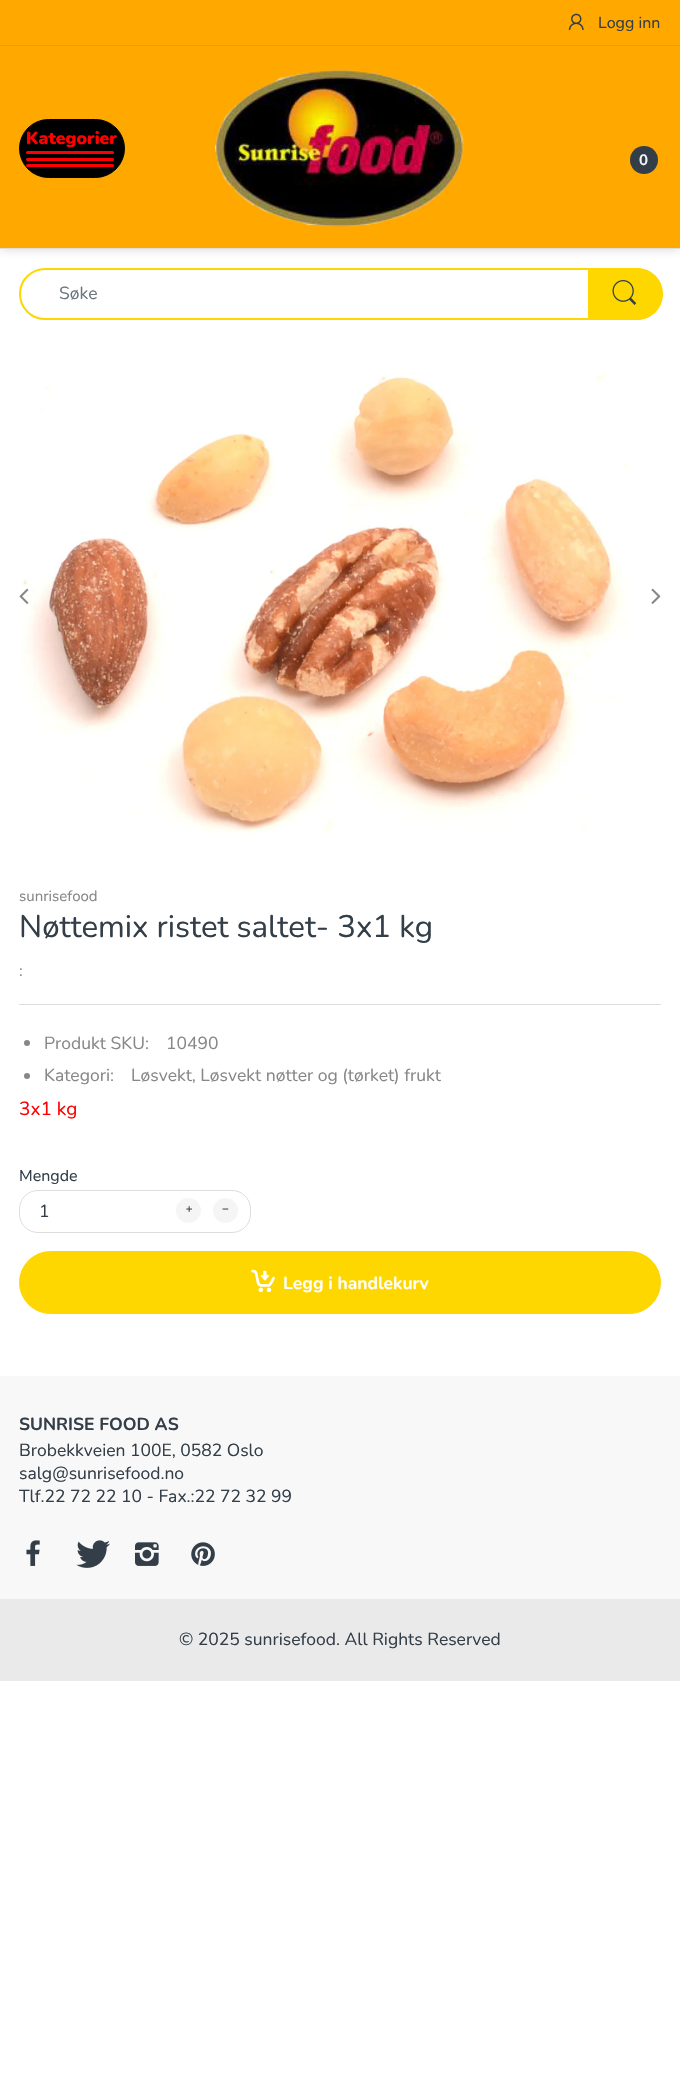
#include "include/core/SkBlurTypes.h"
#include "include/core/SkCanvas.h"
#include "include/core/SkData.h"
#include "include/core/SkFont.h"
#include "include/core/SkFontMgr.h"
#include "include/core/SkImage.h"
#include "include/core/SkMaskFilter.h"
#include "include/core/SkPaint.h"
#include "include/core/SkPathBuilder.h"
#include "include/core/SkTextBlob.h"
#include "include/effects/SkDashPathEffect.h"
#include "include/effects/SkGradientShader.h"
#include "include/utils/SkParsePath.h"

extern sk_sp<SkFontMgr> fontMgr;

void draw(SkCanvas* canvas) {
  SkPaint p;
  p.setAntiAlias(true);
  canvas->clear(SK_ColorWHITE);
  p.setColor(SkColorSetARGB(191, 201, 201, 201));
  p.setMaskFilter(SkMaskFilter::MakeBlur(kNormal_SkBlurStyle, 5));
  canvas->drawRect(SkRect::MakeLTRB(0, 0, 680, 249), p);
  p.setMaskFilter(nullptr);
  p.setColor(SkColorSetRGB(254, 168, 0));
  canvas->drawRect(SkRect::MakeLTRB(0, 0, 680, 248), p);
  p.setColor(SkColorSetRGB(221, 221, 221));
  canvas->drawRect(SkRect::MakeLTRB(0, 248, 680, 249), p);
  p.setColor(SkColorSetRGB(234, 157, 7));
  canvas->drawRect(SkRect::MakeLTRB(0, 45, 680, 46), p);
  canvas->drawImageRect(SkImages::DeferredFromEncodedData(SkData::MakeFromFileName("images/1.png")), SkRect::MakeLTRB(568, 13, 584, 30), SkSamplingOptions());
  p.setColor(SK_ColorBLACK);
  canvas->drawRoundRect(SkRect::MakeLTRB(19.5f, 119.5f, 124.5f, 177.5f), 29, 29, p);
  p.setStyle(SkPaint::kStroke_Style);
  p.setStrokeWidth(1);
  canvas->drawRoundRect(SkRect::MakeLTRB(19.5f, 119.5f, 124.5f, 177.5f), 29, 29, p);
  p.setStyle(SkPaint::kFill_Style);
  p.setColor(SkColorSetRGB(255, 0, 0));
  canvas->drawRoundRect(SkRect::MakeLTRB(26, 151, 114, 154), 1.5f, 1.5f, p);
  canvas->drawRoundRect(SkRect::MakeLTRB(26, 158, 114, 161), 1.5f, 1.5f, p);
  canvas->drawRoundRect(SkRect::MakeLTRB(26, 164, 114, 167), 1.5f, 1.5f, p);
  canvas->drawImageRect(SkImages::DeferredFromEncodedData(SkData::MakeFromFileName("images/2.png")), SkRect::MakeLTRB(215, 70, 464, 227), SkSamplingOptions());
  p.setColor(SkColorSetRGB(51, 62, 72));
  canvas->drawCircle(644, 160, 14, p);
  p.setStyle(SkPaint::kStroke_Style);
  p.setStrokeWidth(3);
  p.setColor(SkColorSetRGB(254, 215, 0));
  canvas->drawRoundRect(SkRect::MakeLTRB(20.5f, 269.5f, 659.5f, 318.5f), 24.5f, 24.5f, p);
  p.setStyle(SkPaint::kFill_Style);
  p.setColor(SK_ColorWHITE);
  canvas->drawRoundRect(SkRect::MakeLTRB(21, 270, 659, 318), 24, 24, p);
  p.setColor(SkColorSetRGB(254, 215, 0));
  canvas->drawPath(SkPathBuilder().moveTo(588, 268).lineTo(637, 268).cubicTo(651.5f, 268, 663, 279.5f, 663, 294).cubicTo(663, 308.5f, 651.5f, 320, 637, 320).lineTo(588, 320).close().detach(), p);
  canvas->drawImageRect(SkImages::DeferredFromEncodedData(SkData::MakeFromFileName("images/3.png")), SkRect::MakeLTRB(612, 280, 637, 305), SkSamplingOptions());
  canvas->drawImageRect(SkImages::DeferredFromEncodedData(SkData::MakeFromFileName("images/4.png")), SkRect::MakeLTRB(19, 353, 630, 834), SkSamplingOptions());
  canvas->drawImageRect(SkImages::DeferredFromEncodedData(SkData::MakeFromFileName("images/5.png")), SkRect::MakeLTRB(19, 588, 29, 604), SkSamplingOptions());
  canvas->drawImageRect(SkImages::DeferredFromEncodedData(SkData::MakeFromFileName("images/6.png")), SkRect::MakeLTRB(651, 588, 661, 604), SkSamplingOptions());
  p.setColor(SkColorSetRGB(221, 221, 221));
  canvas->drawRect(SkRect::MakeLTRB(19, 1004, 661, 1005), p);
  p.setColor(SkColorSetRGB(135, 135, 135));
  canvas->drawCircle(27, 1043, 3, p);
  canvas->drawCircle(27, 1076, 3, p);
  p.setStyle(SkPaint::kStroke_Style);
  p.setStrokeWidth(1);
  p.setColor(SkColorSetRGB(221, 221, 221));
  canvas->drawRoundRect(SkRect::MakeLTRB(19.5f, 1190.5f, 250.5f, 1232.5f), 18.5f, 18.5f, p);
  p.setStyle(SkPaint::kFill_Style);
  p.setColor(SkColorSetRGB(245, 245, 245));
  canvas->drawCircle(188.5f, 1210.5f, 12.5f, p);
  canvas->drawImageRect(SkImages::DeferredFromEncodedData(SkData::MakeFromFileName("images/7.png")), SkRect::MakeLTRB(186, 1206, 192, 1212), SkSamplingOptions());
  canvas->drawCircle(225.5f, 1210.5f, 12.5f, p);
  canvas->drawImageRect(SkImages::DeferredFromEncodedData(SkData::MakeFromFileName("images/8.png")), SkRect::MakeLTRB(222, 1208, 229, 1210), SkSamplingOptions());
  p.setColor(SkColorSetRGB(254, 215, 0));
  canvas->drawRoundRect(SkRect::MakeLTRB(19.5f, 1251.5f, 660.5f, 1313.5f), 31, 31, p);
  p.setStyle(SkPaint::kStroke_Style);
  canvas->drawRoundRect(SkRect::MakeLTRB(19.5f, 1251.5f, 660.5f, 1313.5f), 31, 31, p);
  canvas->drawImageRect(SkImages::DeferredFromEncodedData(SkData::MakeFromFileName("images/9.png")), SkRect::MakeLTRB(251, 1269, 275, 1293), SkSamplingOptions());
  p.setStyle(SkPaint::kFill_Style);
  p.setColor(SkColorSetRGB(248, 248, 248));
  canvas->drawRect(SkRect::MakeLTRB(0, 1376, 680, 1599), p);
  canvas->drawImageRect(SkImages::DeferredFromEncodedData(SkData::MakeFromFileName("images/10.png")), SkRect::MakeLTRB(26, 1540, 40, 1566), SkSamplingOptions());
  canvas->drawImageRect(SkImages::DeferredFromEncodedData(SkData::MakeFromFileName("images/11.png")), SkRect::MakeLTRB(76, 1540, 110, 1568), SkSamplingOptions());
  canvas->drawImageRect(SkImages::DeferredFromEncodedData(SkData::MakeFromFileName("images/12.png")), SkRect::MakeLTRB(135, 1542, 159, 1566), SkSamplingOptions());
  canvas->drawImageRect(SkImages::DeferredFromEncodedData(SkData::MakeFromFileName("images/13.png")), SkRect::MakeLTRB(191, 1542, 215, 1566), SkSamplingOptions());
  p.setColor(SkColorSetRGB(234, 234, 234));
  canvas->drawRect(SkRect::MakeLTRB(0, 1599, 680, 1681), p);
  SkFont font1(fontMgr->matchFamilyStyle("Nunito", SkFontStyle::Normal()), 16);
  font1.setSubpixel(true);
  p.setColor(SkColorSetRGB(51, 62, 72));
  canvas->drawString("Logg inn", 598, 28, font1, p);
  SkFont font2(fontMgr->matchFamilyStyle("Nunito", SkFontStyle(900, SkFontStyle::kNormal_Width, SkFontStyle::kUpright_Slant)), 17.5f);
  font2.setSubpixel(true);
  p.setColor(SkColorSetRGB(255, 0, 0));
  canvas->drawString("Kategorier", 26, 144, font2, p);
  SkFont font3(fontMgr->matchFamilyStyle("Nunito", SkFontStyle::Bold()), 15);
  font3.setSubpixel(true);
  p.setColor(SkColorSetRGB(245, 245, 245));
  canvas->drawString("0", 639, 165, font3, p);
  SkFont font4(fontMgr->matchFamilyStyle("Nunito", SkFontStyle::Normal()), 17.5f);
  font4.setSubpixel(true);
  p.setColor(SkColorSetRGB(108, 117, 125));
  canvas->drawString("Søke", 59, 299, font4, p);
  SkFont font5(fontMgr->matchFamilyStyle("Nunito", SkFontStyle::Normal()), 15);
  font5.setSubpixel(true);
  p.setColor(SkColorSetRGB(135, 135, 135));
  canvas->drawString("sunrisefood", 19, 901, font5, p);
  SkFont font6(fontMgr->matchFamilyStyle("Nunito", SkFontStyle::Normal()), 31.25f);
  font6.setSubpixel(true);
  p.setColor(SkColorSetRGB(51, 62, 72));
  canvas->drawString("Nøttemix ristet saltet- 3x1 kg", 19, 937, font6, p);
  p.setColor(SkColorSetRGB(135, 135, 135));
  canvas->drawString(":", 19, 976, font1, p);
  canvas->drawString("Produkt SKU:", 44, 1049, font4, p);
  canvas->drawString("10490", 166, 1049, font4, p);
  canvas->drawString("Kategori:", 44, 1081, font4, p);
  canvas->drawString("Løsvekt, Løsvekt nøtter og (tørket) frukt", 131, 1081, font4, p);
  SkFont font7(fontMgr->matchFamilyStyle("Nunito", SkFontStyle::Normal()), 19);
  font7.setSubpixel(true);
  p.setColor(SkColorSetRGB(255, 0, 0));
  canvas->drawString("3x1 kg", 19, 1115, font7, p);
  canvas->save();
  canvas->clipRect(SkRect::MakeLTRB(19, 1170, 661, 1333));
  p.setColor(SkColorSetRGB(51, 62, 72));
  canvas->drawString("Mengde", 19, 1181, font1, p);
  canvas->restore();
  canvas->drawString("1", 39, 1217, font4, p);
  SkFont font8(fontMgr->matchFamilyStyle("Nunito", SkFontStyle::Bold()), 17.5f);
  font8.setSubpixel(true);
  p.setColor(SK_ColorWHITE);
  canvas->drawString("Legg i handlekurv", 283, 1289, font8, p);
  p.setColor(SkColorSetRGB(51, 62, 72));
  canvas->drawString("SUNRISE FOOD AS", 19, 1430, font8, p);
  canvas->drawString("Brobekkveien 100E, 0582 Oslo", 19, 1456, font4, p);
  canvas->drawString("salg@sunrisefood.no", 19, 1479, font4, p);
  canvas->drawString("Tlf.22 72 22 10 - Fax.:22 72 32 99", 19, 1502, font4, p);
  canvas->drawString("© 2025 sunrisefood. All Rights Reserved", 179, 1645, font4, p);
}
